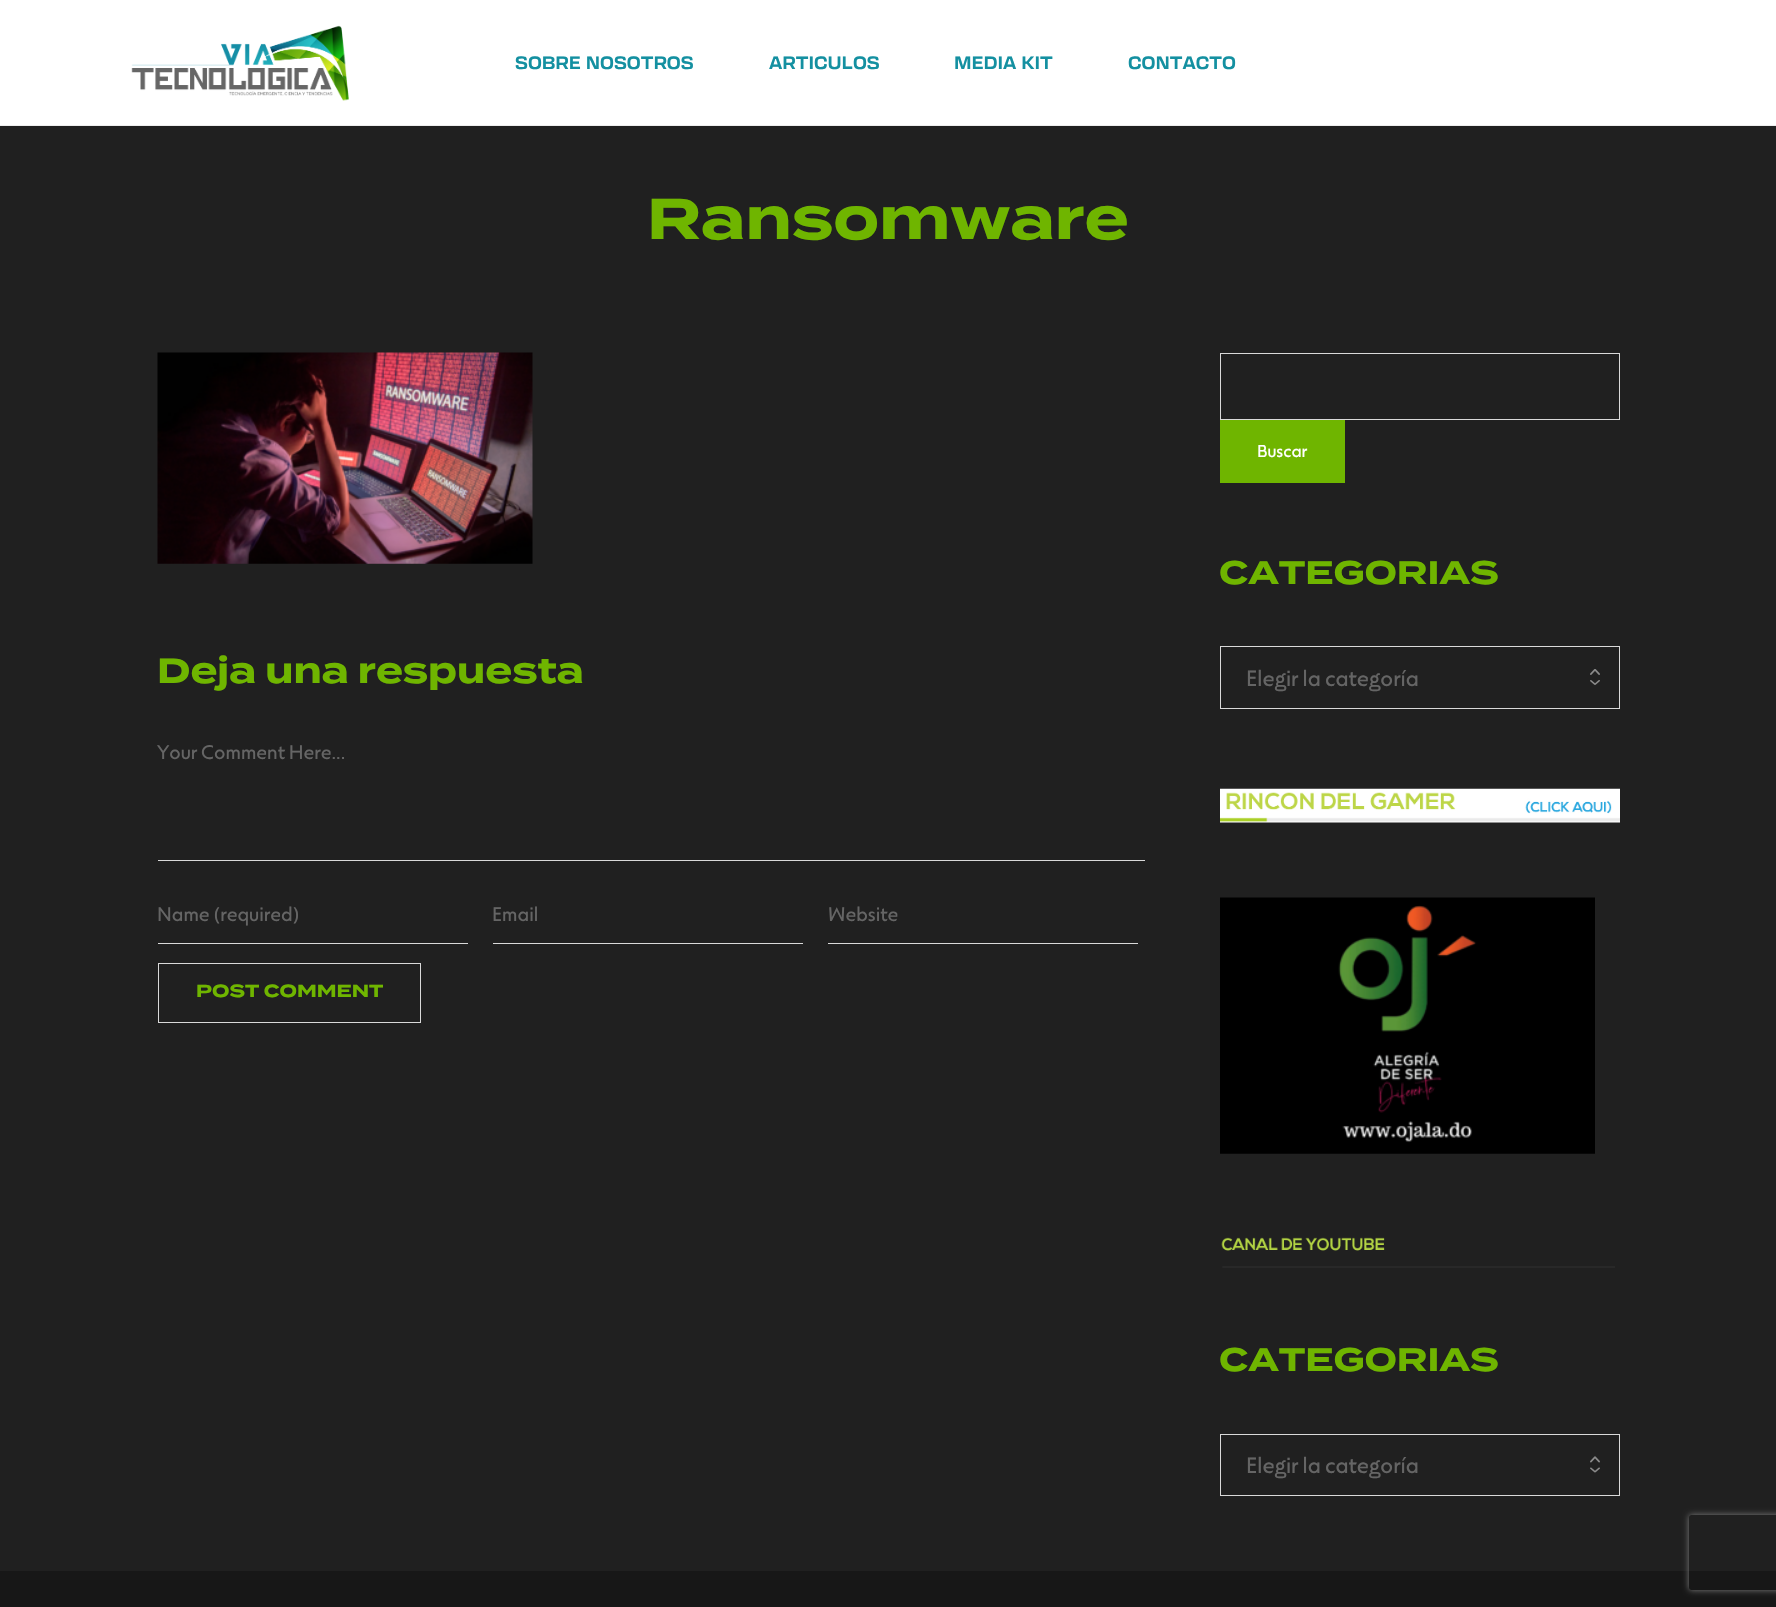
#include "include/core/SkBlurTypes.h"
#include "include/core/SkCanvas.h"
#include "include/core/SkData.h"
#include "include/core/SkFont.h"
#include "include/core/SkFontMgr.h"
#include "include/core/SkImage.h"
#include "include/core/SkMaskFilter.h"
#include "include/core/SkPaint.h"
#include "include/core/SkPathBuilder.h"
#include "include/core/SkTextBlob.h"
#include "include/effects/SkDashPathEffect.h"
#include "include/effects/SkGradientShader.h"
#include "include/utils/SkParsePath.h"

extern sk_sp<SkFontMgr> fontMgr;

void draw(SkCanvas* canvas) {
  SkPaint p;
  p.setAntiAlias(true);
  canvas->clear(SkColorSetRGB(32, 32, 32));
  p.setColor(SK_ColorWHITE);
  canvas->drawRect(SkRect::MakeLTRB(0, 0, 1776, 125), p);
  canvas->drawImageRect(SkImages::DeferredFromEncodedData(SkData::MakeFromFileName("images/1.png")), SkRect::MakeLTRB(131, 25, 349, 101), SkSamplingOptions());
  p.setColor(SkColorSetRGB(238, 238, 238));
  canvas->drawRect(SkRect::MakeLTRB(0, 125, 1776, 126), p);
  canvas->drawImageRect(SkImages::DeferredFromEncodedData(SkData::MakeFromFileName("images/2.png")), SkRect::MakeLTRB(157, 352, 533, 564), SkSamplingOptions());
  p.setColor(SkColorSetRGB(217, 217, 217));
  canvas->drawRect(SkRect::MakeLTRB(158, 860, 1145, 861), p);
  canvas->drawRect(SkRect::MakeLTRB(158, 943, 468, 944), p);
  canvas->drawRect(SkRect::MakeLTRB(493, 943, 803, 944), p);
  canvas->drawRect(SkRect::MakeLTRB(828, 943, 1138, 944), p);
  p.setStyle(SkPaint::kStroke_Style);
  p.setStrokeWidth(1);
  canvas->drawRect(SkRect::MakeLTRB(158.5f, 963.5f, 420.5f, 1022.5f), p);
  canvas->drawRect(SkRect::MakeLTRB(1220.5f, 353.5f, 1619.5f, 419.5f), p);
  p.setStyle(SkPaint::kFill_Style);
  p.setColor(SkColorSetRGB(111, 181, 0));
  canvas->drawRect(SkRect::MakeLTRB(1220, 420, 1345, 483), p);
  canvas->drawImageRect(SkImages::DeferredFromEncodedData(SkData::MakeFromFileName("images/3.png")), SkRect::MakeLTRB(1590, 669, 1600, 685), SkSamplingOptions());
  p.setStyle(SkPaint::kStroke_Style);
  p.setColor(SkColorSetRGB(217, 217, 217));
  canvas->drawRect(SkRect::MakeLTRB(1220.5f, 646.5f, 1619.5f, 708.5f), p);
  canvas->drawImageRect(SkImages::DeferredFromEncodedData(SkData::MakeFromFileName("images/4.png")), SkRect::MakeLTRB(1220, 788, 1620, 823), SkSamplingOptions());
  canvas->drawImageRect(SkImages::DeferredFromEncodedData(SkData::MakeFromFileName("images/5.png")), SkRect::MakeLTRB(1220, 897, 1595, 1154), SkSamplingOptions());
  canvas->drawImageRect(SkImages::DeferredFromEncodedData(SkData::MakeFromFileName("images/6.png")), SkRect::MakeLTRB(1221, 1237, 1615, 1268), SkSamplingOptions());
  canvas->drawImageRect(SkImages::DeferredFromEncodedData(SkData::MakeFromFileName("images/7.png")), SkRect::MakeLTRB(1590, 1456, 1600, 1473), SkSamplingOptions());
  canvas->drawRect(SkRect::MakeLTRB(1220.5f, 1434.5f, 1619.5f, 1495.5f), p);
  p.setStyle(SkPaint::kFill_Style);
  p.setColor(SkColorSetRGB(23, 23, 23));
  canvas->drawRect(SkRect::MakeLTRB(0, 1571, 1776, 1607), p);
  canvas->save();
  canvas->clipPath(SkPathBuilder(SkPathFillType::kEvenOdd).moveTo(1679, 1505).lineTo(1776, 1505).lineTo(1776, 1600).lineTo(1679, 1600).close().moveTo(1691.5f, 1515).lineTo(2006.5f, 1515).cubicTo(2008, 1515, 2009, 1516, 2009, 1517.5f).lineTo(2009, 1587.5f).cubicTo(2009, 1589, 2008, 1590, 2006.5f, 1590).lineTo(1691.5f, 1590).cubicTo(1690, 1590, 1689, 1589, 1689, 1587.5f).lineTo(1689, 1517.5f).cubicTo(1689, 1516, 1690, 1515, 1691.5f, 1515).close().detach(), true);
  p.setColor(SkColorSetRGB(128, 128, 128));
  p.setMaskFilter(SkMaskFilter::MakeBlur(kNormal_SkBlurStyle, 3));
  canvas->drawRoundRect(SkRect::MakeLTRB(1689, 1515, 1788, 1590), 2.5f, 2.5f, p);
  p.setMaskFilter(nullptr);
  canvas->restore();
  SkFont font1(fontMgr->matchFamilyStyle("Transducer", SkFontStyle::Bold()), 17.5f);
  font1.setSubpixel(true);
  p.setColor(SkColorSetRGB(20, 144, 161));
  canvas->drawString("SOBRE NOSOTROS", 515, 69, font1, p);
  canvas->drawString("ARTICULOS", 769, 69, font1, p);
  canvas->drawString("MEDIA KIT", 954, 69, font1, p);
  canvas->drawString("CONTACTO", 1128, 69, font1, p);
  SkFont font2(fontMgr->matchFamilyStyle("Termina", SkFontStyle::Bold()), 57.5f);
  font2.setSubpixel(true);
  p.setColor(SkColorSetRGB(111, 181, 0));
  canvas->drawString("Ransomware", 647, 239, font2, p);
  SkFont font3(fontMgr->matchFamilyStyle("Termina", SkFontStyle::Bold()), 35);
  font3.setSubpixel(true);
  canvas->drawString("Deja una respuesta", 157, 683, font3, p);
  SkFont font4(fontMgr->matchFamilyStyle("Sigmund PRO", SkFontStyle(300, SkFontStyle::kNormal_Width, SkFontStyle::kUpright_Slant)), 20);
  font4.setSubpixel(true);
  p.setColor(SkColorSetRGB(101, 101, 101));
  canvas->drawString("Your Comment Here...", 157, 759, font4, p);
  canvas->drawString("Name (required)", 157, 921, font4, p);
  canvas->drawString("Email", 492, 921, font4, p);
  canvas->drawString("Website", 828, 921, font4, p);
  SkFont font5(fontMgr->matchFamilyStyle("Termina", SkFontStyle::Bold()), 17.5f);
  font5.setSubpixel(true);
  p.setColor(SkColorSetRGB(111, 181, 0));
  canvas->drawString("POST COMMENT", 196, 997, font5, p);
  SkFont font6(fontMgr->matchFamilyStyle("Sigmund PRO", SkFontStyle(300, SkFontStyle::kNormal_Width, SkFontStyle::kUpright_Slant)), 17.5f);
  font6.setSubpixel(true);
  p.setColor(SK_ColorWHITE);
  canvas->drawString("Buscar", 1257, 457, font6, p);
  SkFont font7(fontMgr->matchFamilyStyle("Termina", SkFontStyle::Bold()), 32.5f);
  font7.setSubpixel(true);
  p.setColor(SkColorSetRGB(111, 181, 0));
  canvas->drawString("CATEGORIAS", 1219, 584, font7, p);
  SkFont font8(fontMgr->matchFamilyStyle("Sigmund PRO", SkFontStyle(300, SkFontStyle::kNormal_Width, SkFontStyle::kUpright_Slant)), 22.5f);
  font8.setSubpixel(true);
  p.setColor(SkColorSetRGB(101, 101, 101));
  canvas->drawString("Elegir la categoría", 1246, 686, font8, p);
  p.setColor(SkColorSetRGB(111, 181, 0));
  canvas->drawString("CATEGORIAS", 1219, 1371, font7, p);
  p.setColor(SkColorSetRGB(101, 101, 101));
  canvas->drawString("Elegir la categoría", 1246, 1473, font8, p);
}
